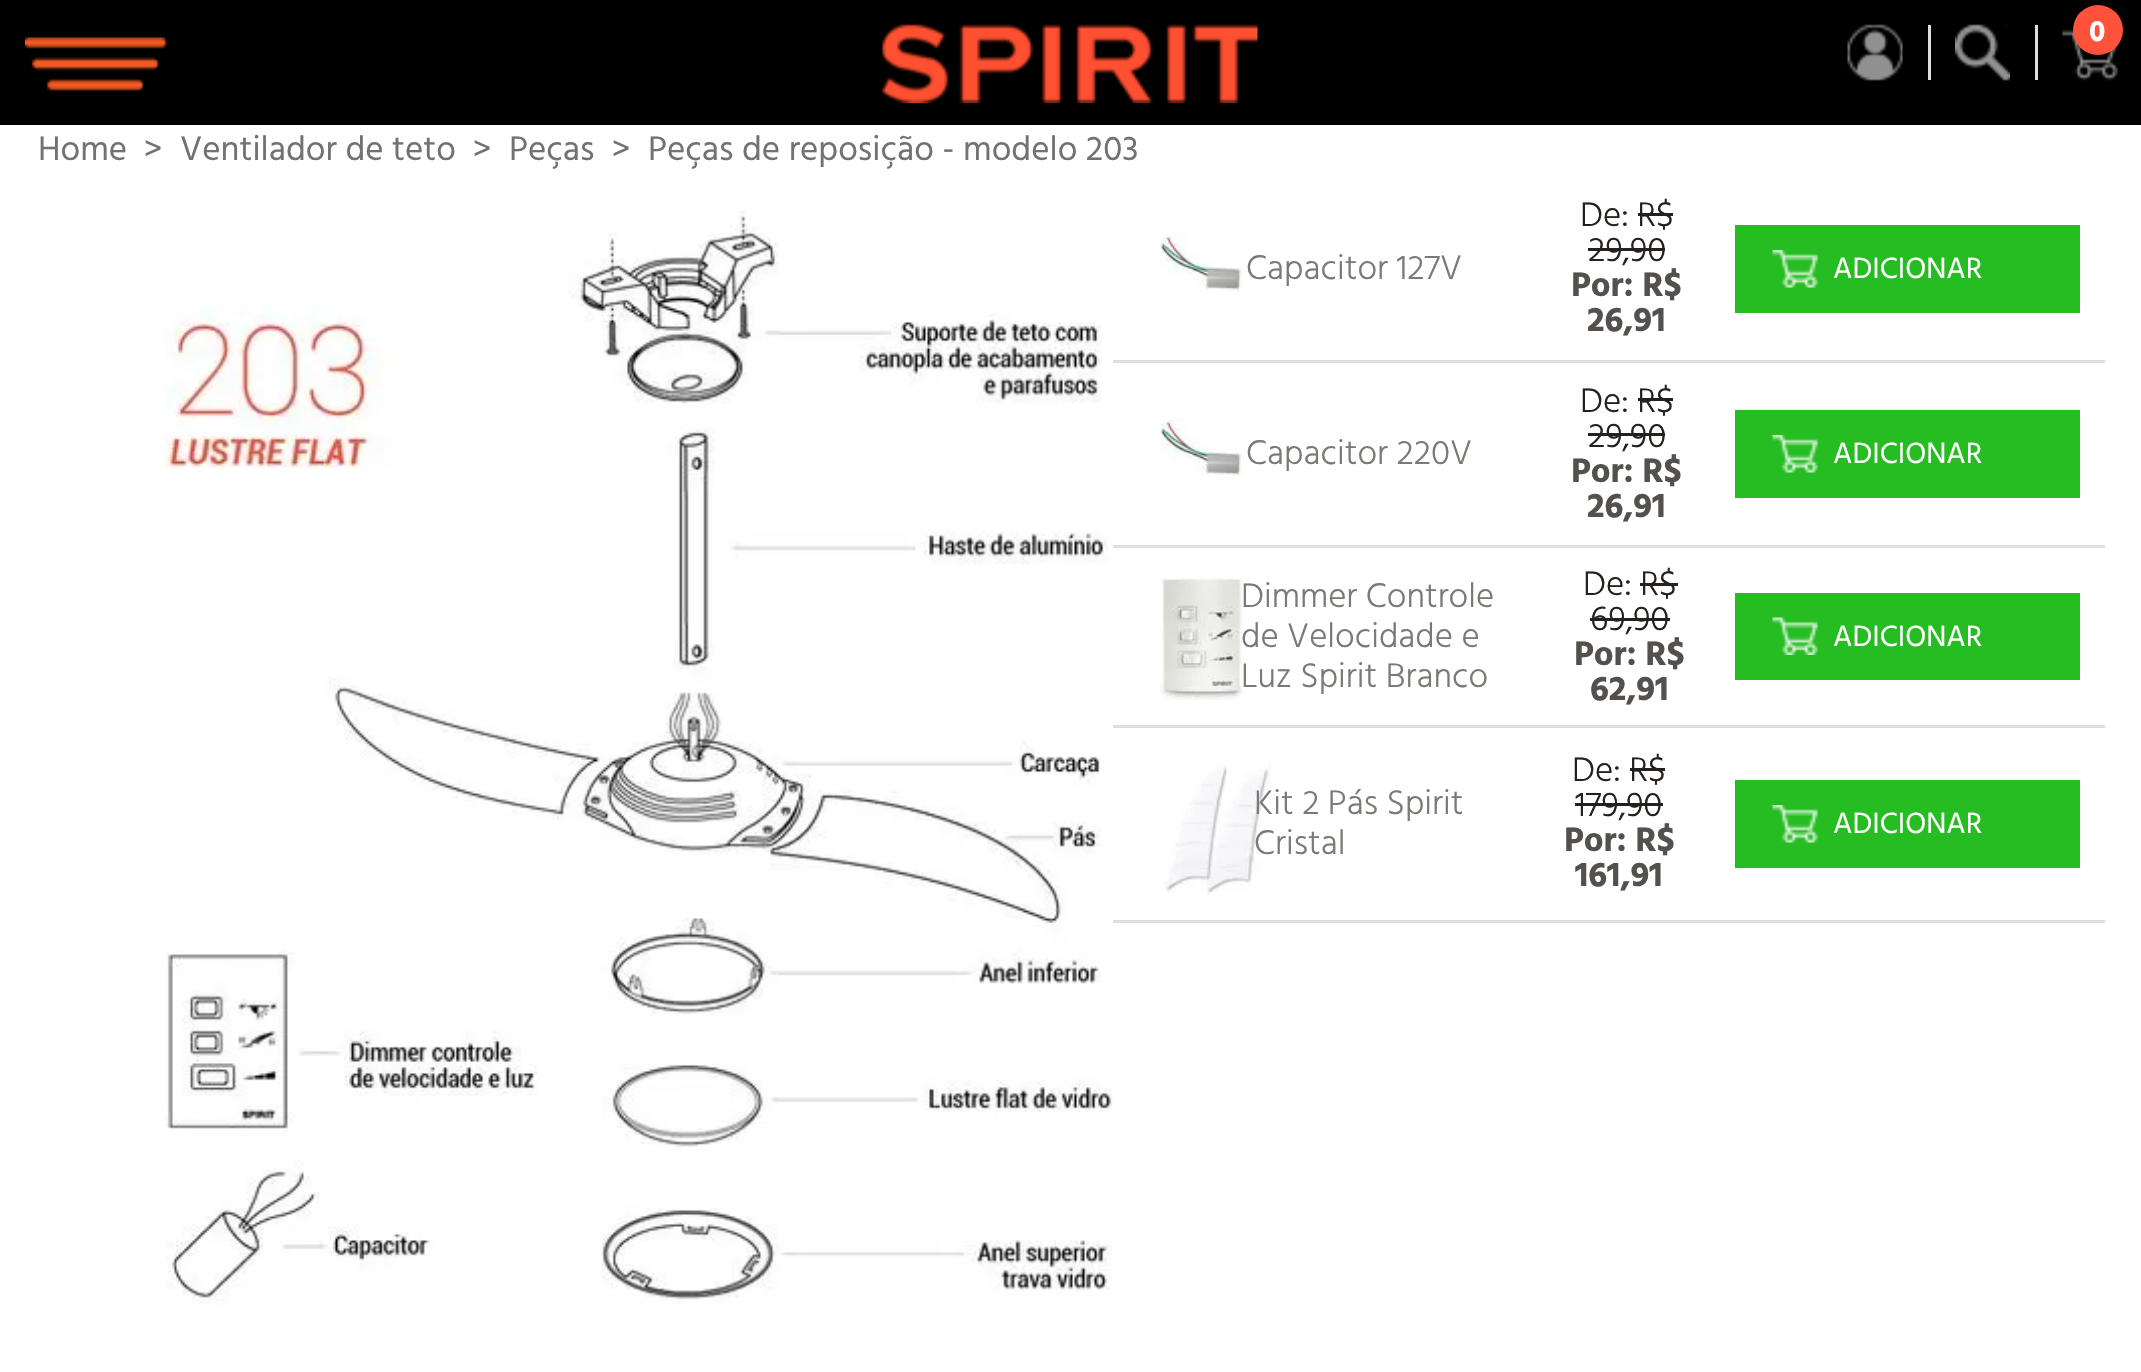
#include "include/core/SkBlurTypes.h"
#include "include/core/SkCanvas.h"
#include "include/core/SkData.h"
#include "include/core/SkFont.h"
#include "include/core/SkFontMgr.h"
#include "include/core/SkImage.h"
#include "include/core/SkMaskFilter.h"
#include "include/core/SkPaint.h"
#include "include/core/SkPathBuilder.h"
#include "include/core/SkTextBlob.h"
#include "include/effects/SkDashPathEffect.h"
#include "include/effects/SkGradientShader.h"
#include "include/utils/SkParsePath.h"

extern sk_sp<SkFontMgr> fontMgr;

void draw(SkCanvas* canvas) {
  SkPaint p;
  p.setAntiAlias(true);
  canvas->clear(SK_ColorWHITE);
  p.setColor(SK_ColorBLACK);
  canvas->drawRect(SkRect::MakeLTRB(0, 0, 2141, 125), p);
  canvas->drawImageRect(SkImages::DeferredFromEncodedData(SkData::MakeFromFileName("images/1.png")), SkRect::MakeLTRB(25, 37, 169, 91), SkSamplingOptions());
  canvas->drawImageRect(SkImages::DeferredFromEncodedData(SkData::MakeFromFileName("images/2.png")), SkRect::MakeLTRB(882, 24, 1258, 103), SkSamplingOptions());
  canvas->drawImageRect(SkImages::DeferredFromEncodedData(SkData::MakeFromFileName("images/3.png")), SkRect::MakeLTRB(1847, 24, 1903, 81), SkSamplingOptions());
  p.setColor(SkColorSetRGB(222, 222, 222));
  canvas->drawRect(SkRect::MakeLTRB(1928, 25, 1931, 80), p);
  canvas->drawImageRect(SkImages::DeferredFromEncodedData(SkData::MakeFromFileName("images/4.png")), SkRect::MakeLTRB(1955, 24, 2010, 81), SkSamplingOptions());
  canvas->drawRect(SkRect::MakeLTRB(2035, 25, 2038, 80), p);
  canvas->drawImageRect(SkImages::DeferredFromEncodedData(SkData::MakeFromFileName("images/5.png")), SkRect::MakeLTRB(2062, 29, 2118, 81), SkSamplingOptions());
  p.setColor(SkColorSetRGB(255, 82, 59));
  canvas->drawCircle(2098, 30, 25, p);
  canvas->drawImageRect(SkImages::DeferredFromEncodedData(SkData::MakeFromFileName("images/6.png")), SkRect::MakeLTRB(165, 210, 1113, 1305), SkSamplingOptions());
  p.setColor(SkColorSetRGB(223, 223, 223));
  canvas->drawRect(SkRect::MakeLTRB(1113, 360, 2105, 363), p);
  canvas->drawImageRect(SkImages::DeferredFromEncodedData(SkData::MakeFromFileName("images/7.png")), SkRect::MakeLTRB(1160, 234, 1244, 292), SkSamplingOptions());
  p.setColor(SkColorSetRGB(36, 32, 30));
  canvas->drawRect(SkRect::MakeLTRB(1638, 213, 1673, 216), p);
  canvas->drawRect(SkRect::MakeLTRB(1588, 248, 1665, 251), p);
  p.setColor(SkColorSetRGB(38, 189, 35));
  canvas->drawRect(SkRect::MakeLTRB(1735, 225, 2080, 313), p);
  canvas->drawImageRect(SkImages::DeferredFromEncodedData(SkData::MakeFromFileName("images/8.png")), SkRect::MakeLTRB(1772, 250, 1818, 288), SkSamplingOptions());
  p.setColor(SkColorSetRGB(223, 223, 223));
  canvas->drawRect(SkRect::MakeLTRB(1113, 545, 2105, 548), p);
  canvas->drawImageRect(SkImages::DeferredFromEncodedData(SkData::MakeFromFileName("images/7.png")), SkRect::MakeLTRB(1160, 419, 1244, 477), SkSamplingOptions());
  p.setColor(SkColorSetRGB(36, 32, 30));
  canvas->drawRect(SkRect::MakeLTRB(1638, 398, 1673, 401), p);
  canvas->drawRect(SkRect::MakeLTRB(1588, 433, 1665, 436), p);
  p.setColor(SkColorSetRGB(38, 189, 35));
  canvas->drawRect(SkRect::MakeLTRB(1735, 410, 2080, 498), p);
  canvas->drawImageRect(SkImages::DeferredFromEncodedData(SkData::MakeFromFileName("images/8.png")), SkRect::MakeLTRB(1772, 435, 1818, 473), SkSamplingOptions());
  p.setColor(SkColorSetRGB(223, 223, 223));
  canvas->drawRect(SkRect::MakeLTRB(1113, 725, 2105, 728), p);
  canvas->drawImageRect(SkImages::DeferredFromEncodedData(SkData::MakeFromFileName("images/9.png")), SkRect::MakeLTRB(1160, 573, 1245, 700), SkSamplingOptions());
  p.setColor(SkColorSetRGB(36, 32, 30));
  canvas->drawRect(SkRect::MakeLTRB(1640, 583, 1678, 586), p);
  canvas->drawRect(SkRect::MakeLTRB(1590, 618, 1670, 621), p);
  p.setColor(SkColorSetRGB(38, 189, 35));
  canvas->drawRect(SkRect::MakeLTRB(1735, 593, 2080, 680), p);
  canvas->drawImageRect(SkImages::DeferredFromEncodedData(SkData::MakeFromFileName("images/10.png")), SkRect::MakeLTRB(1772, 617, 1818, 655), SkSamplingOptions());
  p.setColor(SkColorSetRGB(223, 223, 223));
  canvas->drawRect(SkRect::MakeLTRB(1113, 920, 2105, 923), p);
  canvas->drawImageRect(SkImages::DeferredFromEncodedData(SkData::MakeFromFileName("images/11.png")), SkRect::MakeLTRB(1164, 765, 1271, 895), SkSamplingOptions());
  p.setColor(SkColorSetRGB(36, 32, 30));
  canvas->drawRect(SkRect::MakeLTRB(1630, 768, 1665, 771), p);
  canvas->drawRect(SkRect::MakeLTRB(1575, 803, 1663, 806), p);
  p.setColor(SkColorSetRGB(38, 189, 35));
  canvas->drawRect(SkRect::MakeLTRB(1735, 780, 2080, 868), p);
  canvas->drawImageRect(SkImages::DeferredFromEncodedData(SkData::MakeFromFileName("images/8.png")), SkRect::MakeLTRB(1772, 805, 1818, 843), SkSamplingOptions());
  SkFont font1(fontMgr->matchFamilyStyle("Hind Madurai", SkFontStyle::Bold()), 30);
  font1.setSubpixel(true);
  p.setColor(SK_ColorWHITE);
  canvas->drawString("0", 2089, 41, font1, p);
  SkFont font2(fontMgr->matchFamilyStyle("Hind Madurai", SkFontStyle::Normal()), 35);
  font2.setSubpixel(true);
  p.setColor(SkColorSetRGB(114, 114, 114));
  canvas->drawString("Home", 38, 160, font2, p);
  canvas->drawString(">", 144, 160, font2, p);
  canvas->drawString("Ventilador de teto", 180, 160, font2, p);
  canvas->drawString(">", 473, 160, font2, p);
  canvas->drawString("Peças", 509, 160, font2, p);
  canvas->drawString(">", 612, 160, font2, p);
  canvas->drawString("Peças de reposição - modelo 203", 648, 160, font2, p);
  SkFont font3(fontMgr->matchFamilyStyle("Hind Madurai", SkFontStyle(300, SkFontStyle::kNormal_Width, SkFontStyle::kUpright_Slant)), 35);
  font3.setSubpixel(true);
  p.setColor(SkColorSetRGB(123, 120, 117));
  canvas->drawString("Capacitor 127V", 1246, 279, font3, p);
  p.setColor(SkColorSetRGB(36, 32, 30));
  canvas->drawString("De: R$", 1580, 226, font3, p);
  canvas->drawString("29,90", 1588, 261, font3, p);
  SkFont font4(fontMgr->matchFamilyStyle("Hind Madurai", SkFontStyle::Bold()), 35);
  font4.setSubpixel(true);
  p.setColor(SkColorSetRGB(83, 80, 78));
  canvas->drawString("Por: R$", 1571, 296, font4, p);
  canvas->drawString("26,91", 1587, 331, font4, p);
  SkFont font5(fontMgr->matchFamilyStyle("Hind Madurai", SkFontStyle::Normal()), 30);
  font5.setSubpixel(true);
  p.setColor(SK_ColorWHITE);
  canvas->drawString("ADICIONAR", 1833, 278, font5, p);
  p.setColor(SkColorSetRGB(123, 120, 117));
  canvas->drawString("Capacitor 220V", 1246, 464, font3, p);
  p.setColor(SkColorSetRGB(36, 32, 30));
  canvas->drawString("De: R$", 1580, 412, font3, p);
  canvas->drawString("29,90", 1588, 447, font3, p);
  p.setColor(SkColorSetRGB(83, 80, 78));
  canvas->drawString("Por: R$", 1571, 482, font4, p);
  canvas->drawString("26,91", 1587, 517, font4, p);
  p.setColor(SK_ColorWHITE);
  canvas->drawString("ADICIONAR", 1833, 463, font5, p);
  p.setColor(SkColorSetRGB(123, 120, 117));
  canvas->drawString("Dimmer Controle", 1241, 607, font3, p);
  canvas->drawString("de Velocidade e", 1241, 647, font3, p);
  canvas->drawString("Luz Spirit Branco", 1241, 687, font3, p);
  p.setColor(SkColorSetRGB(36, 32, 30));
  canvas->drawString("De: R$", 1583, 595, font3, p);
  canvas->drawString("69,90", 1590, 630, font3, p);
  p.setColor(SkColorSetRGB(83, 80, 78));
  canvas->drawString("Por: R$", 1574, 665, font4, p);
  canvas->drawString("62,91", 1590, 700, font4, p);
  p.setColor(SK_ColorWHITE);
  canvas->drawString("ADICIONAR", 1833, 646, font5, p);
  p.setColor(SkColorSetRGB(123, 120, 117));
  canvas->drawString("Kit 2 Pás Spirit", 1254, 814, font3, p);
  canvas->drawString("Cristal", 1254, 854, font3, p);
  p.setColor(SkColorSetRGB(36, 32, 30));
  canvas->drawString("De: R$", 1572, 781, font3, p);
  canvas->drawString("179,90", 1575, 816, font3, p);
  p.setColor(SkColorSetRGB(83, 80, 78));
  canvas->drawString("Por: R$", 1564, 851, font4, p);
  canvas->drawString("161,91", 1575, 886, font4, p);
  p.setColor(SK_ColorWHITE);
  canvas->drawString("ADICIONAR", 1833, 833, font5, p);
}
